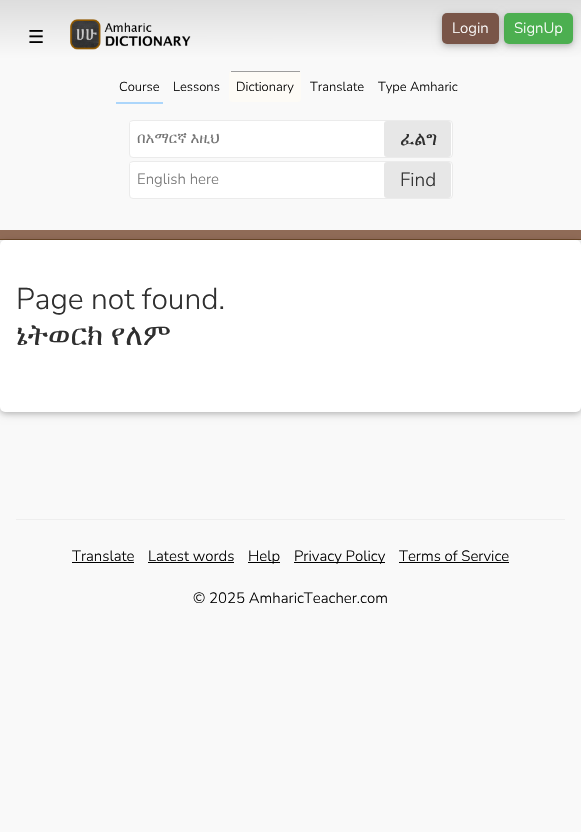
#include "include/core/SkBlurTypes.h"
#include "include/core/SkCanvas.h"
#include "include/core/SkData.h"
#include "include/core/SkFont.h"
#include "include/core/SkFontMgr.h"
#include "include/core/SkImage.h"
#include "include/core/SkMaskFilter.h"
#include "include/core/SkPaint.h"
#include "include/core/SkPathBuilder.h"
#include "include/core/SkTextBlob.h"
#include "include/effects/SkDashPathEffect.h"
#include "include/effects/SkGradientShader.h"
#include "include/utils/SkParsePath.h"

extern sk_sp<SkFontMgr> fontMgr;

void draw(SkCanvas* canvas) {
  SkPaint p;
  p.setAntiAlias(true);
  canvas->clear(SK_ColorWHITE);
  {
    const SkColor colors[] = {SkColorSetRGB(221, 221, 221), SkColorSetRGB(249, 249, 249)};
    const float stops[] = {0, 0.07f};
    const SkPoint ends[] = {{290, 0}, {291, 832}};
    p.setShader(SkGradientShader::MakeLinear(ends, colors, stops, 2, SkTileMode::kClamp));
    p.setAlpha(255);
  }
  canvas->drawRect(SkRect::MakeLTRB(0, 0, 581, 832), p);
  canvas->drawImageRect(SkImages::DeferredFromEncodedData(SkData::MakeFromFileName("images/1.png")), SkRect::MakeLTRB(70, 19, 191, 50), SkSamplingOptions());
  p.setShader(nullptr);
  p.setColor(SkColorSetARGB(31, 0, 0, 0));
  p.setMaskFilter(SkMaskFilter::MakeBlur(kNormal_SkBlurStyle, 5));
  canvas->drawRoundRect(SkRect::MakeLTRB(504, 15, 573, 46), 5, 5, p);
  p.setMaskFilter(nullptr);
  p.setColor(SkColorSetARGB(41, 0, 0, 0));
  p.setMaskFilter(SkMaskFilter::MakeBlur(kNormal_SkBlurStyle, 2.5f));
  canvas->drawRoundRect(SkRect::MakeLTRB(504, 15, 573, 46), 5, 5, p);
  p.setMaskFilter(nullptr);
  p.setColor(SkColorSetRGB(76, 175, 80));
  canvas->drawRoundRect(SkRect::MakeLTRB(504, 13, 573, 44), 5, 5, p);
  p.setColor(SkColorSetARGB(31, 0, 0, 0));
  p.setMaskFilter(SkMaskFilter::MakeBlur(kNormal_SkBlurStyle, 5));
  canvas->drawRoundRect(SkRect::MakeLTRB(442, 15, 499, 46), 5, 5, p);
  p.setMaskFilter(nullptr);
  p.setColor(SkColorSetARGB(41, 0, 0, 0));
  p.setMaskFilter(SkMaskFilter::MakeBlur(kNormal_SkBlurStyle, 2.5f));
  canvas->drawRoundRect(SkRect::MakeLTRB(442, 15, 499, 46), 5, 5, p);
  p.setMaskFilter(nullptr);
  p.setColor(SkColorSetRGB(121, 85, 72));
  canvas->drawRoundRect(SkRect::MakeLTRB(442, 13, 499, 44), 5, 5, p);
  p.setColor(SkColorSetRGB(172, 214, 251));
  canvas->drawRect(SkRect::MakeLTRB(116, 102, 163, 104), p);
  p.setColor(SkColorSetRGB(253, 251, 246));
  canvas->drawRoundRect(SkRect::MakeLTRB(229, 71, 301, 102), 3, 3, p);
  p.setColor(SkColorSetRGB(157, 157, 157));
  canvas->drawRect(SkRect::MakeLTRB(231, 71, 300, 72), p);
  p.setColor(SK_ColorWHITE);
  canvas->drawRoundRect(SkRect::MakeLTRB(129.5f, 120.5f, 452.5f, 157.5f), 3.5f, 3.5f, p);
  p.setStyle(SkPaint::kStroke_Style);
  p.setStrokeWidth(1);
  p.setColor(SkColorSetRGB(235, 235, 235));
  canvas->drawRoundRect(SkRect::MakeLTRB(129.5f, 120.5f, 452.5f, 157.5f), 3.5f, 3.5f, p);
  p.setStyle(SkPaint::kFill_Style);
  p.setColor(SK_ColorWHITE);
  canvas->drawRect(SkRect::MakeLTRB(130, 122, 131, 123), p);
  p.setColor(SkColorSetRGB(231, 231, 231));
  canvas->drawRoundRect(SkRect::MakeLTRB(384, 121, 451, 157), 3, 3, p);
  p.setColor(SK_ColorWHITE);
  canvas->drawRoundRect(SkRect::MakeLTRB(129.5f, 161.5f, 452.5f, 198.5f), 3.5f, 3.5f, p);
  p.setStyle(SkPaint::kStroke_Style);
  p.setColor(SkColorSetRGB(235, 235, 235));
  canvas->drawRoundRect(SkRect::MakeLTRB(129.5f, 161.5f, 452.5f, 198.5f), 3.5f, 3.5f, p);
  p.setStyle(SkPaint::kFill_Style);
  p.setColor(SK_ColorWHITE);
  canvas->drawRect(SkRect::MakeLTRB(130, 163, 131, 164), p);
  p.setColor(SkColorSetRGB(231, 231, 231));
  canvas->drawRoundRect(SkRect::MakeLTRB(384, 162, 451, 198), 3, 3, p);
  p.setColor(SkColorSetRGB(144, 107, 87));
  canvas->drawRect(SkRect::MakeLTRB(0, 230, 581, 239), p);
  p.setColor(SkColorSetRGB(109, 73, 41));
  canvas->drawRect(SkRect::MakeLTRB(0, 239, 581, 240), p);
  p.setColor(SkColorSetARGB(31, 0, 0, 0));
  p.setMaskFilter(SkMaskFilter::MakeBlur(kNormal_SkBlurStyle, 5));
  canvas->drawRoundRect(SkRect::MakeLTRB(0, 242, 581, 414), 5, 5, p);
  p.setMaskFilter(nullptr);
  p.setColor(SkColorSetARGB(41, 0, 0, 0));
  p.setMaskFilter(SkMaskFilter::MakeBlur(kNormal_SkBlurStyle, 2.5f));
  canvas->drawRoundRect(SkRect::MakeLTRB(0, 242, 581, 414), 5, 5, p);
  p.setMaskFilter(nullptr);
  p.setColor(SK_ColorWHITE);
  canvas->drawRoundRect(SkRect::MakeLTRB(0, 240, 581, 412), 5, 5, p);
  p.setColor(SkColorSetRGB(238, 238, 238));
  canvas->drawRect(SkRect::MakeLTRB(16, 519, 565, 520), p);
  p.setColor(SK_ColorBLACK);
  canvas->drawRect(SkRect::MakeLTRB(72, 562, 134, 563), p);
  canvas->drawRect(SkRect::MakeLTRB(148, 562, 234, 563), p);
  canvas->drawRect(SkRect::MakeLTRB(248, 562, 280, 563), p);
  canvas->drawRect(SkRect::MakeLTRB(294, 562, 385, 563), p);
  canvas->drawRect(SkRect::MakeLTRB(399, 562, 509, 563), p);
  SkFont font1(fontMgr->matchFamilyStyle("DejaVu Sans", SkFontStyle::Normal()), 18);
  font1.setSubpixel(true);
  canvas->drawString("☰", 28, 43, font1, p);
  SkFont font2(fontMgr->matchFamilyStyle("Nunito Sans", SkFontStyle(300, SkFontStyle::kNormal_Width, SkFontStyle::kUpright_Slant)), 15);
  font2.setSubpixel(true);
  p.setColor(SK_ColorWHITE);
  canvas->drawString("Login", 452, 33, font2, p);
  canvas->drawString("SignUp", 514, 33, font2, p);
  SkFont font3(fontMgr->matchFamilyStyle("Nunito Sans", SkFontStyle(300, SkFontStyle::kNormal_Width, SkFontStyle::kUpright_Slant)), 13);
  font3.setSubpixel(true);
  p.setColor(SK_ColorBLACK);
  canvas->drawString("Course", 119, 91, font3, p);
  canvas->drawString("Lessons", 173, 91, font3, p);
  canvas->drawString("Dictionary", 236, 91, font3, p);
  canvas->drawString("Translate", 310, 91, font3, p);
  canvas->drawString("Type Amharic", 378, 91, font3, p);
  SkFont font4(fontMgr->matchFamilyStyle("FreeSerif", SkFontStyle::Normal()), 15);
  font4.setSubpixel(true);
  p.setColor(SkColorSetRGB(117, 117, 117));
  canvas->drawString("በአማርኛ እዚህ", 137, 143, font4, p);
  SkFont font5(fontMgr->matchFamilyStyle("FreeSerif", SkFontStyle::Normal()), 19);
  font5.setSubpixel(true);
  p.setColor(SkColorSetRGB(47, 47, 47));
  canvas->drawString("ፈልግ", 400, 145, font5, p);
  p.setColor(SkColorSetRGB(117, 117, 117));
  canvas->drawString("English here", 137, 184, font2, p);
  SkFont font6(fontMgr->matchFamilyStyle("Nunito Sans", SkFontStyle(300, SkFontStyle::kNormal_Width, SkFontStyle::kUpright_Slant)), 19);
  font6.setSubpixel(true);
  p.setColor(SkColorSetRGB(47, 47, 47));
  canvas->drawString("Find", 400, 186, font6, p);
  SkFont font7(fontMgr->matchFamilyStyle("Nunito Sans", SkFontStyle(300, SkFontStyle::kNormal_Width, SkFontStyle::kUpright_Slant)), 30);
  font7.setSubpixel(true);
  canvas->drawString("Page not found.", 16, 309, font7, p);
  SkFont font8(fontMgr->matchFamilyStyle("FreeSerif", SkFontStyle::Normal()), 30);
  font8.setSubpixel(true);
  canvas->drawString("ኔትወርክ የለም", 16, 345, font8, p);
  p.setColor(SK_ColorBLACK);
  canvas->drawString("Translate", 72, 561, font2, p);
  canvas->drawString("Latest words", 148, 561, font2, p);
  canvas->drawString("Help", 248, 561, font2, p);
  canvas->drawString("Privacy Policy", 294, 561, font2, p);
  canvas->drawString("Terms of Service", 399, 561, font2, p);
  canvas->drawString("© 2025 AmharicTeacher.com", 193, 603, font2, p);
}
